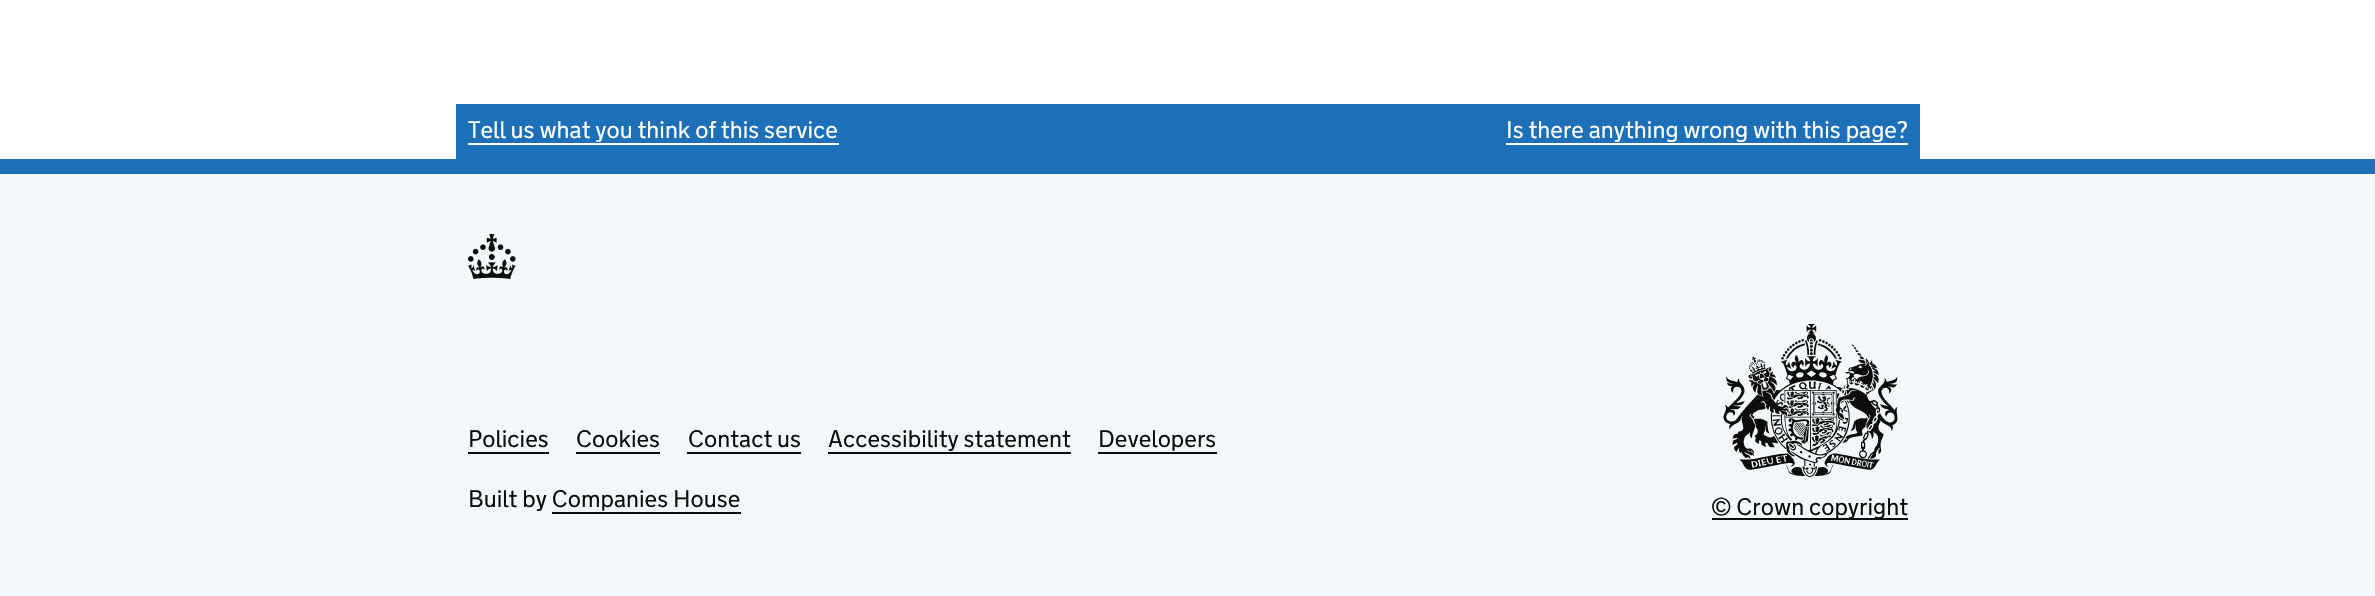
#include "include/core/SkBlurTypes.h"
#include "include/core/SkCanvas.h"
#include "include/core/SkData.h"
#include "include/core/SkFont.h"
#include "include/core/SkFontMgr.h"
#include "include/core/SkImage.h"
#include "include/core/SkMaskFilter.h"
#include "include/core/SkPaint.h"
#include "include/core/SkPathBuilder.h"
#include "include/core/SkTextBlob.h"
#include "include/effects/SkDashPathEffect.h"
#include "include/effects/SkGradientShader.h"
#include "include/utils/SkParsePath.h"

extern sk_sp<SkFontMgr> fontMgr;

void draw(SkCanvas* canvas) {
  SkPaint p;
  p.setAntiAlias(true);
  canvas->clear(SK_ColorWHITE);
  p.setColor(SkColorSetRGB(29, 112, 184));
  canvas->drawRect(SkRect::MakeLTRB(456, 104, 1920, 159), p);
  p.setColor(SK_ColorWHITE);
  canvas->drawRect(SkRect::MakeLTRB(468, 143, 839, 145), p);
  canvas->drawRect(SkRect::MakeLTRB(1506, 143, 1908, 145), p);
  p.setColor(SkColorSetRGB(244, 248, 251));
  canvas->drawRect(SkRect::MakeLTRB(0, 174, 2375, 596), p);
  p.setColor(SkColorSetRGB(29, 112, 184));
  canvas->drawRect(SkRect::MakeLTRB(0, 159, 2375, 174), p);
  canvas->drawImageRect(SkImages::DeferredFromEncodedData(SkData::MakeFromFileName("images/1.png")), SkRect::MakeLTRB(468, 234, 516, 279), SkSamplingOptions());
  p.setColor(SkColorSetRGB(11, 12, 12));
  canvas->drawRect(SkRect::MakeLTRB(468, 452, 549, 454), p);
  canvas->drawRect(SkRect::MakeLTRB(576, 452, 660, 454), p);
  canvas->drawRect(SkRect::MakeLTRB(687, 452, 801, 454), p);
  canvas->drawRect(SkRect::MakeLTRB(828, 452, 1071, 454), p);
  canvas->drawRect(SkRect::MakeLTRB(1098, 452, 1217, 454), p);
  canvas->drawRect(SkRect::MakeLTRB(552, 512, 741, 514), p);
  canvas->drawImageRect(SkImages::DeferredFromEncodedData(SkData::MakeFromFileName("images/2.png")), SkRect::MakeLTRB(1723, 324, 1898, 477), SkSamplingOptions());
  canvas->drawRect(SkRect::MakeLTRB(1712, 518, 1908, 520), p);
  SkFont font1(fontMgr->matchFamilyStyle("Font", SkFontStyle(300, SkFontStyle::kNormal_Width, SkFontStyle::kUpright_Slant)), 24);
  font1.setSubpixel(true);
  p.setColor(SK_ColorWHITE);
  canvas->drawString("Tell us what you think of this service", 468, 138, font1, p);
  canvas->drawString("Is there anything wrong with this page?", 1506, 138, font1, p);
  p.setColor(SkColorSetRGB(11, 12, 12));
  canvas->drawString("Policies", 468, 447, font1, p);
  canvas->drawString("Cookies", 576, 447, font1, p);
  canvas->drawString("Contact us", 688, 447, font1, p);
  canvas->drawString("Accessibility statement", 828, 447, font1, p);
  canvas->drawString("Developers", 1098, 447, font1, p);
  canvas->drawString("Built by Companies House", 468, 507, font1, p);
  canvas->drawString("© Crown copyright", 1711, 515, font1, p);
}
